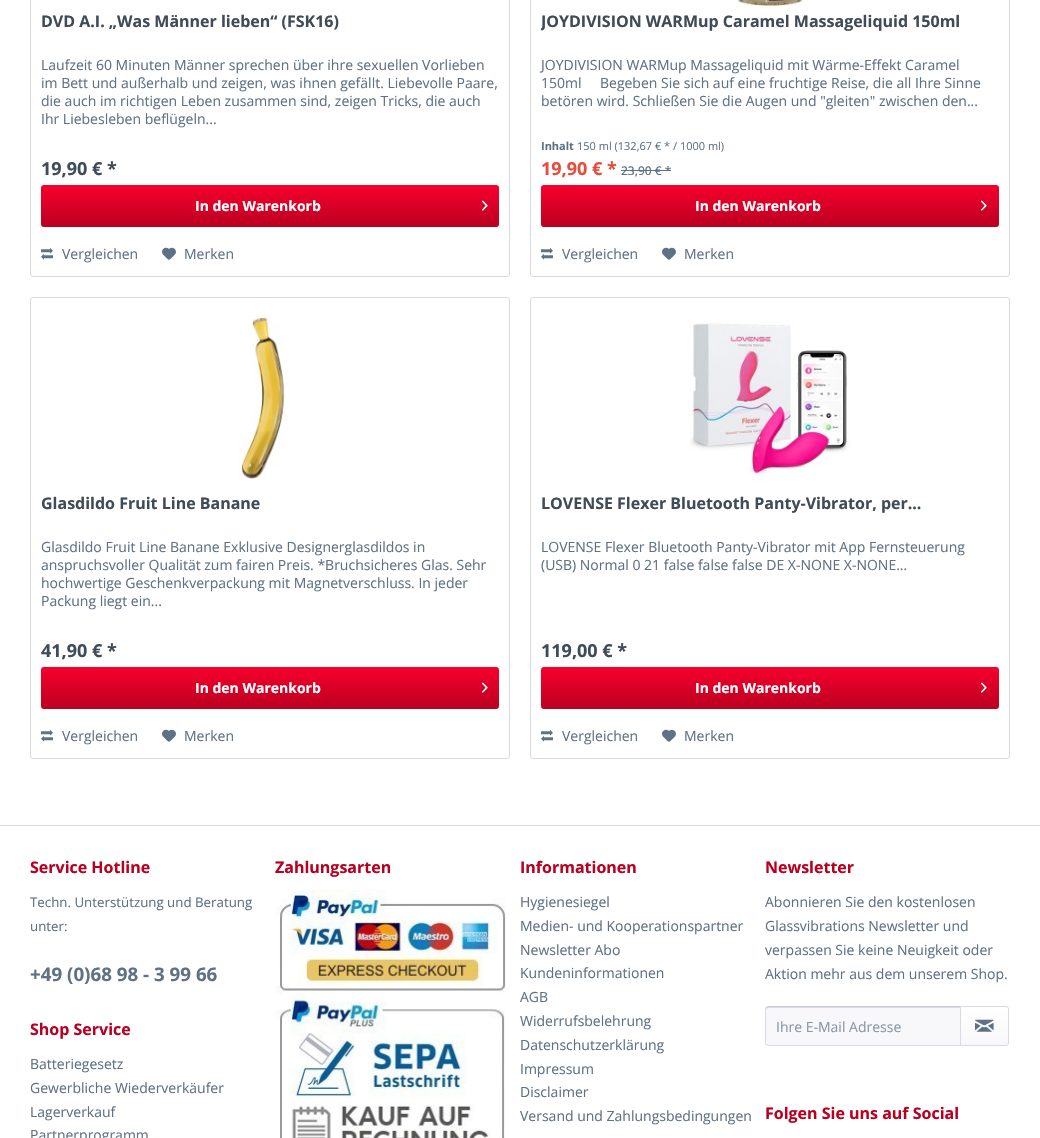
#include "include/core/SkBlurTypes.h"
#include "include/core/SkCanvas.h"
#include "include/core/SkData.h"
#include "include/core/SkFont.h"
#include "include/core/SkFontMgr.h"
#include "include/core/SkImage.h"
#include "include/core/SkMaskFilter.h"
#include "include/core/SkPaint.h"
#include "include/core/SkPathBuilder.h"
#include "include/core/SkTextBlob.h"
#include "include/effects/SkDashPathEffect.h"
#include "include/effects/SkGradientShader.h"
#include "include/utils/SkParsePath.h"

extern sk_sp<SkFontMgr> fontMgr;

void draw(SkCanvas* canvas) {
  SkPaint p;
  p.setAntiAlias(true);
  canvas->clear(SK_ColorWHITE);
  p.setStyle(SkPaint::kStroke_Style);
  p.setStrokeWidth(1);
  p.setColor(SkColorSetRGB(218, 218, 229));
  canvas->drawRoundRect(SkRect::MakeLTRB(30.5f, -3.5f, 509.5f, 276.5f), 2.5f, 2.5f, p);
  p.setStyle(SkPaint::kFill_Style);
  {
    const SkColor colors[] = {SkColorSetRGB(247, 0, 44), SkColorSetRGB(186, 0, 33)};
    const float stops[] = {0, 1};
    const SkPoint ends[] = {{270, 185}, {270, 227}};
    p.setShader(SkGradientShader::MakeLinear(ends, colors, stops, 2, SkTileMode::kClamp));
    p.setAlpha(255);
  }
  canvas->drawRoundRect(SkRect::MakeLTRB(41, 185, 499, 227), 3, 3, p);
  canvas->drawImageRect(SkImages::DeferredFromEncodedData(SkData::MakeFromFileName("images/1.png")), SkRect::MakeLTRB(482, 200, 488, 211), SkSamplingOptions());
  canvas->drawImageRect(SkImages::DeferredFromEncodedData(SkData::MakeFromFileName("images/2.png")), SkRect::MakeLTRB(41, 247, 53, 260), SkSamplingOptions());
  canvas->drawImageRect(SkImages::DeferredFromEncodedData(SkData::MakeFromFileName("images/3.png")), SkRect::MakeLTRB(162, 247, 176, 260), SkSamplingOptions());
  p.setStyle(SkPaint::kStroke_Style);
  p.setShader(nullptr);
  p.setColor(SkColorSetRGB(218, 218, 229));
  canvas->drawRoundRect(SkRect::MakeLTRB(530.5f, -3.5f, 1009.5f, 276.5f), 2.5f, 2.5f, p);
  canvas->drawImageRect(SkImages::DeferredFromEncodedData(SkData::MakeFromFileName("images/4.png")), SkRect::MakeLTRB(737, 0, 803, 6), SkSamplingOptions());
  p.setStyle(SkPaint::kFill_Style);
  p.setColor(SkColorSetRGB(95, 114, 133));
  canvas->drawRect(SkRect::MakeLTRB(621, 170, 671, 171), p);
  {
    const SkColor colors[] = {SkColorSetRGB(247, 0, 44), SkColorSetRGB(186, 0, 33)};
    const float stops[] = {0, 1};
    const SkPoint ends[] = {{770, 185}, {770, 227}};
    p.setShader(SkGradientShader::MakeLinear(ends, colors, stops, 2, SkTileMode::kClamp));
    p.setAlpha(255);
  }
  canvas->drawRoundRect(SkRect::MakeLTRB(541, 185, 999, 227), 3, 3, p);
  canvas->drawImageRect(SkImages::DeferredFromEncodedData(SkData::MakeFromFileName("images/1.png")), SkRect::MakeLTRB(981, 200, 987, 211), SkSamplingOptions());
  canvas->drawImageRect(SkImages::DeferredFromEncodedData(SkData::MakeFromFileName("images/2.png")), SkRect::MakeLTRB(541, 247, 553, 260), SkSamplingOptions());
  canvas->drawImageRect(SkImages::DeferredFromEncodedData(SkData::MakeFromFileName("images/3.png")), SkRect::MakeLTRB(662, 247, 676, 260), SkSamplingOptions());
  p.setStyle(SkPaint::kStroke_Style);
  p.setShader(nullptr);
  p.setColor(SkColorSetRGB(218, 218, 229));
  canvas->drawRoundRect(SkRect::MakeLTRB(30.5f, 297.5f, 509.5f, 758.5f), 2.5f, 2.5f, p);
  canvas->drawImageRect(SkImages::DeferredFromEncodedData(SkData::MakeFromFileName("images/5.png")), SkRect::MakeLTRB(237, 312, 292, 481), SkSamplingOptions());
  p.setStyle(SkPaint::kFill_Style);
  {
    const SkColor colors[] = {SkColorSetRGB(247, 0, 44), SkColorSetRGB(186, 0, 33)};
    const float stops[] = {0, 1};
    const SkPoint ends[] = {{270, 667}, {270, 709}};
    p.setShader(SkGradientShader::MakeLinear(ends, colors, stops, 2, SkTileMode::kClamp));
    p.setAlpha(255);
  }
  canvas->drawRoundRect(SkRect::MakeLTRB(41, 667, 499, 709), 3, 3, p);
  canvas->drawImageRect(SkImages::DeferredFromEncodedData(SkData::MakeFromFileName("images/1.png")), SkRect::MakeLTRB(482, 682, 488, 693), SkSamplingOptions());
  canvas->drawImageRect(SkImages::DeferredFromEncodedData(SkData::MakeFromFileName("images/2.png")), SkRect::MakeLTRB(41, 729, 53, 742), SkSamplingOptions());
  canvas->drawImageRect(SkImages::DeferredFromEncodedData(SkData::MakeFromFileName("images/3.png")), SkRect::MakeLTRB(162, 729, 176, 742), SkSamplingOptions());
  p.setStyle(SkPaint::kStroke_Style);
  p.setShader(nullptr);
  p.setColor(SkColorSetRGB(218, 218, 229));
  canvas->drawRoundRect(SkRect::MakeLTRB(530.5f, 297.5f, 1009.5f, 758.5f), 2.5f, 2.5f, p);
  canvas->drawImageRect(SkImages::DeferredFromEncodedData(SkData::MakeFromFileName("images/6.png")), SkRect::MakeLTRB(689, 323, 850, 481), SkSamplingOptions());
  p.setStyle(SkPaint::kFill_Style);
  {
    const SkColor colors[] = {SkColorSetRGB(247, 0, 44), SkColorSetRGB(186, 0, 33)};
    const float stops[] = {0, 1};
    const SkPoint ends[] = {{770, 667}, {770, 709}};
    p.setShader(SkGradientShader::MakeLinear(ends, colors, stops, 2, SkTileMode::kClamp));
    p.setAlpha(255);
  }
  canvas->drawRoundRect(SkRect::MakeLTRB(541, 667, 999, 709), 3, 3, p);
  canvas->drawImageRect(SkImages::DeferredFromEncodedData(SkData::MakeFromFileName("images/1.png")), SkRect::MakeLTRB(981, 682, 987, 693), SkSamplingOptions());
  canvas->drawImageRect(SkImages::DeferredFromEncodedData(SkData::MakeFromFileName("images/2.png")), SkRect::MakeLTRB(541, 729, 553, 742), SkSamplingOptions());
  canvas->drawImageRect(SkImages::DeferredFromEncodedData(SkData::MakeFromFileName("images/3.png")), SkRect::MakeLTRB(662, 729, 676, 742), SkSamplingOptions());
  p.setShader(nullptr);
  p.setColor(SkColorSetRGB(218, 218, 229));
  canvas->drawRect(SkRect::MakeLTRB(0, 825, 1040, 826), p);
  canvas->drawImageRect(SkImages::DeferredFromEncodedData(SkData::MakeFromFileName("images/7.png")), SkRect::MakeLTRB(275, 890, 506, 1138), SkSamplingOptions());
  p.setColor(SkColorSetRGB(248, 248, 250));
  canvas->drawPath(SkPathBuilder().moveTo(768, 1007).lineTo(960, 1007).lineTo(960, 1045).lineTo(768, 1045).cubicTo(767, 1045, 766, 1044, 766, 1043).lineTo(766, 1009).cubicTo(766, 1008, 767, 1007, 768, 1007).close().detach(), p);
  p.setColor(SkColorSetRGB(218, 218, 229));
  canvas->drawPath(SkPathBuilder().moveTo(768, 1008).lineTo(960, 1008).lineTo(960, 1007).lineTo(768, 1007).cubicTo(766, 1007, 766, 1009, 766, 1010).cubicTo(766, 1009, 767, 1008, 768, 1008).close().detach(), p);
  p.setColor(SkColorSetRGB(203, 203, 219));
  canvas->drawPath(SkPathBuilder().moveTo(768, 1006).lineTo(766, 1007).lineTo(767, 1008).lineTo(768, 1007).lineTo(960, 1007).lineTo(961, 1006).close().detach(), p);
  p.setColor(SkColorSetRGB(218, 218, 229));
  canvas->drawPath(SkPathBuilder().moveTo(961, 1046).lineTo(960, 1045).lineTo(768, 1045).lineTo(767, 1044).lineTo(766, 1045).lineTo(768, 1046).close().detach(), p);
  canvas->drawPath(SkPathBuilder().moveTo(765, 1009).lineTo(765, 1043).cubicTo(765, 1044, 765, 1045, 766, 1045).lineTo(766.5f, 1044.5f).lineTo(766, 1043).lineTo(766, 1009).lineTo(766.5f, 1007.5f).lineTo(766, 1007).cubicTo(765, 1007, 765, 1008, 765, 1009).close().detach(), p);
  {
    const SkColor colors[] = {SK_ColorWHITE, SkColorSetRGB(248, 248, 250)};
    const float stops[] = {0, 1};
    const SkPoint ends[] = {{985, 1007}, {985, 1045}};
    p.setShader(SkGradientShader::MakeLinear(ends, colors, stops, 2, SkTileMode::kClamp));
    p.setAlpha(255);
  }
  canvas->drawPath(SkPathBuilder().moveTo(961, 1007).lineTo(1006, 1007).cubicTo(1007, 1007, 1008, 1008, 1008, 1009).lineTo(1008, 1043).cubicTo(1008, 1044, 1007, 1045, 1006, 1045).lineTo(961, 1045).close().detach(), p);
  p.setStyle(SkPaint::kStroke_Style);
  p.setShader(nullptr);
  p.setColor(SkColorSetRGB(218, 218, 229));
  canvas->drawPath(SkPathBuilder().moveTo(960.5f, 1006.5f).lineTo(1006, 1006.5f).cubicTo(1007.5f, 1006.5f, 1008.5f, 1007.5f, 1008.5f, 1009).lineTo(1008.5f, 1043).cubicTo(1008.5f, 1044.5f, 1007.5f, 1045.5f, 1006, 1045.5f).lineTo(960.5f, 1045.5f).close().detach(), p);
  canvas->drawImageRect(SkImages::DeferredFromEncodedData(SkData::MakeFromFileName("images/8.png")), SkRect::MakeLTRB(975, 1019, 994, 1032), SkSamplingOptions());
  SkFont font1(fontMgr->matchFamilyStyle("Open Sans", SkFontStyle::Bold()), 16);
  font1.setSubpixel(true);
  p.setStyle(SkPaint::kFill_Style);
  p.setColor(SkColorSetRGB(63, 76, 88));
  canvas->drawString("DVD A.I. „Was Männer lieben“ (FSK16)", 41, 27, font1, p);
  SkFont font2(fontMgr->matchFamilyStyle("Open Sans", SkFontStyle::Normal()), 14);
  font2.setSubpixel(true);
  p.setColor(SkColorSetRGB(95, 114, 133));
  canvas->drawString("Laufzeit 60 Minuten Männer sprechen über ihre sexuellen Vorlieben", 41, 70, font2, p);
  canvas->drawString("im Bett und außerhalb und zeigen, was ihnen gefällt. Liebevolle Paare,", 41, 88, font2, p);
  canvas->drawString("die auch im richtigen Leben zusammen sind, zeigen Tricks, die auch", 41, 106, font2, p);
  canvas->drawString("Ihr Liebesleben beflügeln...", 41, 124, font2, p);
  SkFont font3(fontMgr->matchFamilyStyle("Open Sans", SkFontStyle::Bold()), 18);
  font3.setSubpixel(true);
  p.setColor(SkColorSetRGB(63, 76, 88));
  canvas->drawString("19,90 € *", 41, 175, font3, p);
  SkFont font4(fontMgr->matchFamilyStyle("Open Sans", SkFontStyle::Bold()), 14);
  font4.setSubpixel(true);
  p.setColor(SK_ColorWHITE);
  canvas->drawString("In den Warenkorb", 195, 211, font4, p);
  p.setColor(SkColorSetRGB(95, 114, 133));
  canvas->drawString("Vergleichen", 62, 259, font2, p);
  canvas->drawString("Merken", 184, 259, font2, p);
  canvas->save();
  canvas->clipRect(SkRect::MakeLTRB(541, 11, 999, 51));
  p.setColor(SkColorSetRGB(63, 76, 88));
  canvas->drawString("JOYDIVISION WARMup Caramel Massageliquid 150ml", 541, 27, font1, p);
  canvas->restore();
  p.setColor(SkColorSetRGB(95, 114, 133));
  canvas->drawString("JOYDIVISION WARMup Massageliquid mit Wärme-Effekt Caramel", 541, 70, font2, p);
  canvas->drawString("150ml", 541, 88, font2, p);
  canvas->drawString("Begeben Sie sich auf eine fruchtige Reise, die all Ihre Sinne", 600, 88, font2, p);
  canvas->drawString("betören wird. Schließen Sie die Augen und \"gleiten\" zwischen den...", 541, 106, font2, p);
  SkFont font5(fontMgr->matchFamilyStyle("Open Sans", SkFontStyle::Bold()), 11);
  font5.setSubpixel(true);
  canvas->drawString("Inhalt", 541, 150, font5, p);
  SkFont font6(fontMgr->matchFamilyStyle("Open Sans", SkFontStyle::Normal()), 11);
  font6.setSubpixel(true);
  canvas->drawString("150 ml (132,67 € * / 1000 ml)", 577, 150, font6, p);
  p.setColor(SkColorSetRGB(231, 76, 60));
  canvas->drawString("19,90 € *", 541, 175, font3, p);
  SkFont font7(fontMgr->matchFamilyStyle("Open Sans", SkFontStyle(500, SkFontStyle::kNormal_Width, SkFontStyle::kUpright_Slant)), 12);
  font7.setSubpixel(true);
  p.setColor(SkColorSetRGB(95, 114, 133));
  canvas->drawString("23,90 € *", 621, 175, font7, p);
  p.setColor(SK_ColorWHITE);
  canvas->drawString("In den Warenkorb", 695, 211, font4, p);
  p.setColor(SkColorSetRGB(95, 114, 133));
  canvas->drawString("Vergleichen", 562, 259, font2, p);
  canvas->drawString("Merken", 684, 259, font2, p);
  p.setColor(SkColorSetRGB(63, 76, 88));
  canvas->drawString("Glasdildo Fruit Line Banane", 41, 509, font1, p);
  p.setColor(SkColorSetRGB(95, 114, 133));
  canvas->drawString("Glasdildo Fruit Line Banane Exklusive Designerglasdildos in", 41, 552, font2, p);
  canvas->drawString("anspruchsvoller Qualität zum fairen Preis. *Bruchsicheres Glas. Sehr", 41, 570, font2, p);
  canvas->drawString("hochwertige Geschenkverpackung mit Magnetverschluss. In jeder", 41, 588, font2, p);
  canvas->drawString("Packung liegt ein...", 41, 606, font2, p);
  p.setColor(SkColorSetRGB(63, 76, 88));
  canvas->drawString("41,90 € *", 41, 657, font3, p);
  p.setColor(SK_ColorWHITE);
  canvas->drawString("In den Warenkorb", 195, 693, font4, p);
  p.setColor(SkColorSetRGB(95, 114, 133));
  canvas->drawString("Vergleichen", 62, 741, font2, p);
  canvas->drawString("Merken", 184, 741, font2, p);
  p.setColor(SkColorSetRGB(63, 76, 88));
  canvas->drawString("LOVENSE Flexer Bluetooth Panty-Vibrator, per...", 541, 509, font1, p);
  p.setColor(SkColorSetRGB(95, 114, 133));
  canvas->drawString("LOVENSE Flexer Bluetooth Panty-Vibrator mit App Fernsteuerung", 541, 552, font2, p);
  canvas->drawString("(USB) Normal 0 21 false false false DE X-NONE X-NONE...", 541, 570, font2, p);
  p.setColor(SkColorSetRGB(63, 76, 88));
  canvas->drawString("119,00 € *", 541, 657, font3, p);
  p.setColor(SK_ColorWHITE);
  canvas->drawString("In den Warenkorb", 695, 693, font4, p);
  p.setColor(SkColorSetRGB(95, 114, 133));
  canvas->drawString("Vergleichen", 562, 741, font2, p);
  canvas->drawString("Merken", 684, 741, font2, p);
  p.setColor(SkColorSetRGB(186, 0, 33));
  canvas->drawString("Service Hotline", 30, 873, font1, p);
  SkFont font8(fontMgr->matchFamilyStyle("Open Sans", SkFontStyle::Normal()), 13.3f);
  font8.setSubpixel(true);
  p.setColor(SkColorSetRGB(95, 114, 133));
  canvas->drawString("Techn. Unterstützung und Beratung", 30, 907, font8, p);
  canvas->drawString("unter:", 30, 931, font8, p);
  SkFont font9(fontMgr->matchFamilyStyle("Open Sans", SkFontStyle::Bold()), 18.75f);
  font9.setSubpixel(true);
  canvas->drawString("+49 (0)68 98 - 3 99 66", 30, 981, font9, p);
  p.setColor(SkColorSetRGB(186, 0, 33));
  canvas->drawString("Shop Service", 30, 1035, font1, p);
  p.setColor(SkColorSetRGB(95, 114, 133));
  canvas->drawString("Batteriegesetz", 30, 1069, font2, p);
  canvas->drawString("Gewerbliche Wiederverkäufer", 30, 1093, font2, p);
  canvas->drawString("Lagerverkauf", 30, 1117, font2, p);
  canvas->drawString("Partnerprogramm", 30, 1140, font2, p);
  p.setColor(SkColorSetRGB(186, 0, 33));
  canvas->drawString("Zahlungsarten", 275, 873, font1, p);
  canvas->drawString("Informationen", 520, 873, font1, p);
  p.setColor(SkColorSetRGB(95, 114, 133));
  canvas->drawString("Hygienesiegel", 520, 907, font2, p);
  canvas->drawString("Medien- und Kooperationspartner", 520, 931, font2, p);
  canvas->drawString("Newsletter Abo", 520, 955, font2, p);
  canvas->drawString("Kundeninformationen", 520, 978, font2, p);
  canvas->drawString("AGB", 520, 1002, font2, p);
  canvas->drawString("Widerrufsbelehrung", 520, 1026, font2, p);
  canvas->drawString("Datenschutzerklärung", 520, 1050, font2, p);
  canvas->drawString("Impressum", 520, 1074, font2, p);
  canvas->drawString("Disclaimer", 520, 1097, font2, p);
  canvas->drawString("Versand und Zahlungsbedingungen", 520, 1121, font2, p);
  p.setColor(SkColorSetRGB(186, 0, 33));
  canvas->drawString("Newsletter", 765, 873, font1, p);
  p.setColor(SkColorSetRGB(95, 114, 133));
  canvas->drawString("Abonnieren Sie den kostenlosen", 765, 907, font2, p);
  canvas->drawString("Glassvibrations Newsletter und", 765, 931, font2, p);
  canvas->drawString("verpassen Sie keine Neuigkeit oder", 765, 955, font2, p);
  canvas->drawString("Aktion mehr aus dem unserem Shop.", 765, 979, font2, p);
  p.setColor(SkColorSetRGB(135, 152, 169));
  canvas->drawString("Ihre E-Mail Adresse", 776, 1032, font2, p);
  p.setColor(SkColorSetRGB(186, 0, 33));
  canvas->drawString("Folgen Sie uns auf Social", 765, 1119, font1, p);
}
